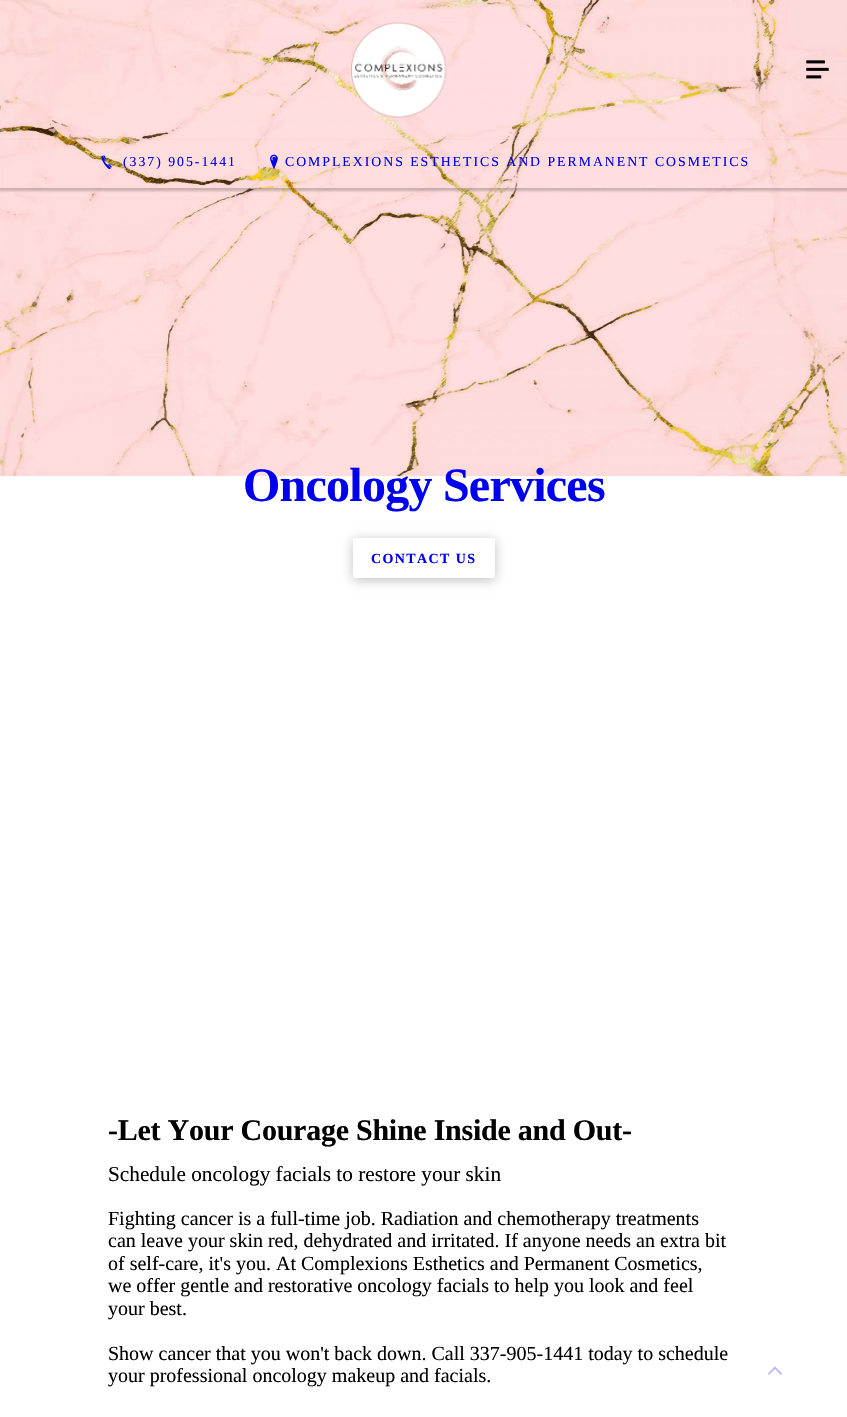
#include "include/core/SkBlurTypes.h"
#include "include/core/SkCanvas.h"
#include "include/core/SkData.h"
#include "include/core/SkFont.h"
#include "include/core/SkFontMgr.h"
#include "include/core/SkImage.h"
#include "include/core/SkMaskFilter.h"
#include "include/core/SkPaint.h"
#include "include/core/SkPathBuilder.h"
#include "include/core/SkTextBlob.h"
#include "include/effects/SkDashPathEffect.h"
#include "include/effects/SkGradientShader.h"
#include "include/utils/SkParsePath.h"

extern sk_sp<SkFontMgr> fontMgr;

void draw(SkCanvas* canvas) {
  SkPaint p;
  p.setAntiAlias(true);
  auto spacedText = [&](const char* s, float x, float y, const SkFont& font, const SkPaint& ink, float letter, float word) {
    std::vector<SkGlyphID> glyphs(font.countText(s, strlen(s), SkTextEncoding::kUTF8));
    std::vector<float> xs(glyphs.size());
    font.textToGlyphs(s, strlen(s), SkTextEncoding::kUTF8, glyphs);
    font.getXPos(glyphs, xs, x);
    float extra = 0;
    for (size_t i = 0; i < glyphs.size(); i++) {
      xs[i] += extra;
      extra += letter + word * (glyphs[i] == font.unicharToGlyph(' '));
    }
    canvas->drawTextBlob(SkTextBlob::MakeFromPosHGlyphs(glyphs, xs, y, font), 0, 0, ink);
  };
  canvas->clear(SK_ColorWHITE);
  canvas->drawImageRect(SkImages::DeferredFromEncodedData(SkData::MakeFromFileName("images/5.png")), SkRect::MakeLTRB(0, 0, 847, 477), SkSamplingOptions());
  canvas->drawImageRect(SkImages::DeferredFromEncodedData(SkData::MakeFromFileName("images/1.png")), SkRect::MakeLTRB(351, 22, 447, 118), SkSamplingOptions());
  canvas->drawImageRect(SkImages::DeferredFromEncodedData(SkData::MakeFromFileName("images/2.png")), SkRect::MakeLTRB(806, 60, 829, 79), SkSamplingOptions());
  canvas->save();
  canvas->clipPath(SkPathBuilder(SkPathFillType::kEvenOdd).moveTo(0, 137).lineTo(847, 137).lineTo(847, 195).lineTo(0, 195).close().moveTo(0, 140).lineTo(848, 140).lineTo(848, 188).lineTo(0, 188).close().detach(), true);
  p.setColor(SkColorSetARGB(51, 0, 0, 0));
  p.setMaskFilter(SkMaskFilter::MakeBlur(kNormal_SkBlurStyle, 1));
  canvas->drawRect(SkRect::MakeLTRB(-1, 141, 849, 191), p);
  p.setMaskFilter(nullptr);
  canvas->restore();
  canvas->drawImageRect(SkImages::DeferredFromEncodedData(SkData::MakeFromFileName("images/3.png")), SkRect::MakeLTRB(101, 155, 112, 169), SkSamplingOptions());
  canvas->drawImageRect(SkImages::DeferredFromEncodedData(SkData::MakeFromFileName("images/4.png")), SkRect::MakeLTRB(270, 154, 278, 169), SkSamplingOptions());
  canvas->save();
  canvas->clipPath(SkPathBuilder(SkPathFillType::kEvenOdd).moveTo(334, 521).lineTo(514, 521).lineTo(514, 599).lineTo(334, 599).close().moveTo(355.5f, 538).lineTo(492.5f, 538).cubicTo(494, 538, 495, 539, 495, 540.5f).lineTo(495, 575.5f).cubicTo(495, 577, 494, 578, 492.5f, 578).lineTo(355.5f, 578).cubicTo(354, 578, 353, 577, 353, 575.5f).lineTo(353, 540.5f).cubicTo(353, 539, 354, 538, 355.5f, 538).close().detach(), true);
  p.setColor(SkColorSetARGB(64, 0, 0, 0));
  p.setMaskFilter(SkMaskFilter::MakeBlur(kNormal_SkBlurStyle, 6));
  canvas->drawRoundRect(SkRect::MakeLTRB(353, 540, 495, 580), 2.5f, 2.5f, p);
  p.setMaskFilter(nullptr);
  canvas->restore();
  SkFont font1(fontMgr->matchFamilyStyle("Liberation Serif", SkFontStyle::Normal()), 13.75f);
  font1.setSubpixel(true);
  p.setColor(SkColorSetRGB(0, 0, 238));
  spacedText("(337) 905-1441", 123, 166, font1, p, 2, 0);
  spacedText("COMPLEXIONS ESTHETICS AND PERMANENT COSMETICS", 285, 166, font1, p, 2, 0);
  SkFont font2(fontMgr->matchFamilyStyle("Liberation Serif", SkFontStyle::Bold()), 48);
  font2.setSubpixel(true);
  spacedText("Oncology Services", 243, 501, font2, p, -0.75f, 0);
  SkFont font3(fontMgr->matchFamilyStyle("Liberation Serif", SkFontStyle::Bold()), 14);
  font3.setSubpixel(true);
  spacedText("CONTACT US", 371, 563, font3, p, 1.4f, 0);
  SkFont font4(fontMgr->matchFamilyStyle("Liberation Serif", SkFontStyle::Bold()), 30);
  font4.setSubpixel(true);
  p.setColor(SK_ColorBLACK);
  spacedText("-Let Your Courage Shine Inside and Out-", 108, 1140, font4, p, -0.25f, 0);
  SkFont font5(fontMgr->matchFamilyStyle("Liberation Serif", SkFontStyle::Normal()), 21.25f);
  font5.setSubpixel(true);
  canvas->drawString("Schedule oncology facials to restore your skin", 108, 1181, font5, p);
  SkFont font6(fontMgr->matchFamilyStyle("Liberation Serif", SkFontStyle::Normal()), 20);
  font6.setSubpixel(true);
  canvas->drawString("Fighting cancer is a full-time job. Radiation and chemotherapy treatments", 108, 1225, font6, p);
  canvas->drawString("can leave your skin red, dehydrated and irritated. If anyone needs an extra bit", 108, 1247, font6, p);
  canvas->drawString("of self-care, it's you. At Complexions Esthetics and Permanent Cosmetics,", 108, 1270, font6, p);
  canvas->drawString("we offer gentle and restorative oncology facials to help you look and feel", 108, 1292, font6, p);
  canvas->drawString("your best.", 108, 1315, font6, p);
  canvas->drawString("Show cancer that you won't back down. Call 337-905-1441 today to schedule", 108, 1360, font6, p);
  canvas->drawString("your professional oncology makeup and facials.", 108, 1382, font6, p);
  SkFont font7(fontMgr->matchFamilyStyle("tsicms", SkFontStyle::Normal()), 18);
  font7.setSubpixel(true);
  p.setColor(SkColorSetRGB(179, 179, 250));
  canvas->drawString("+", 768, 1378, font7, p);
}
